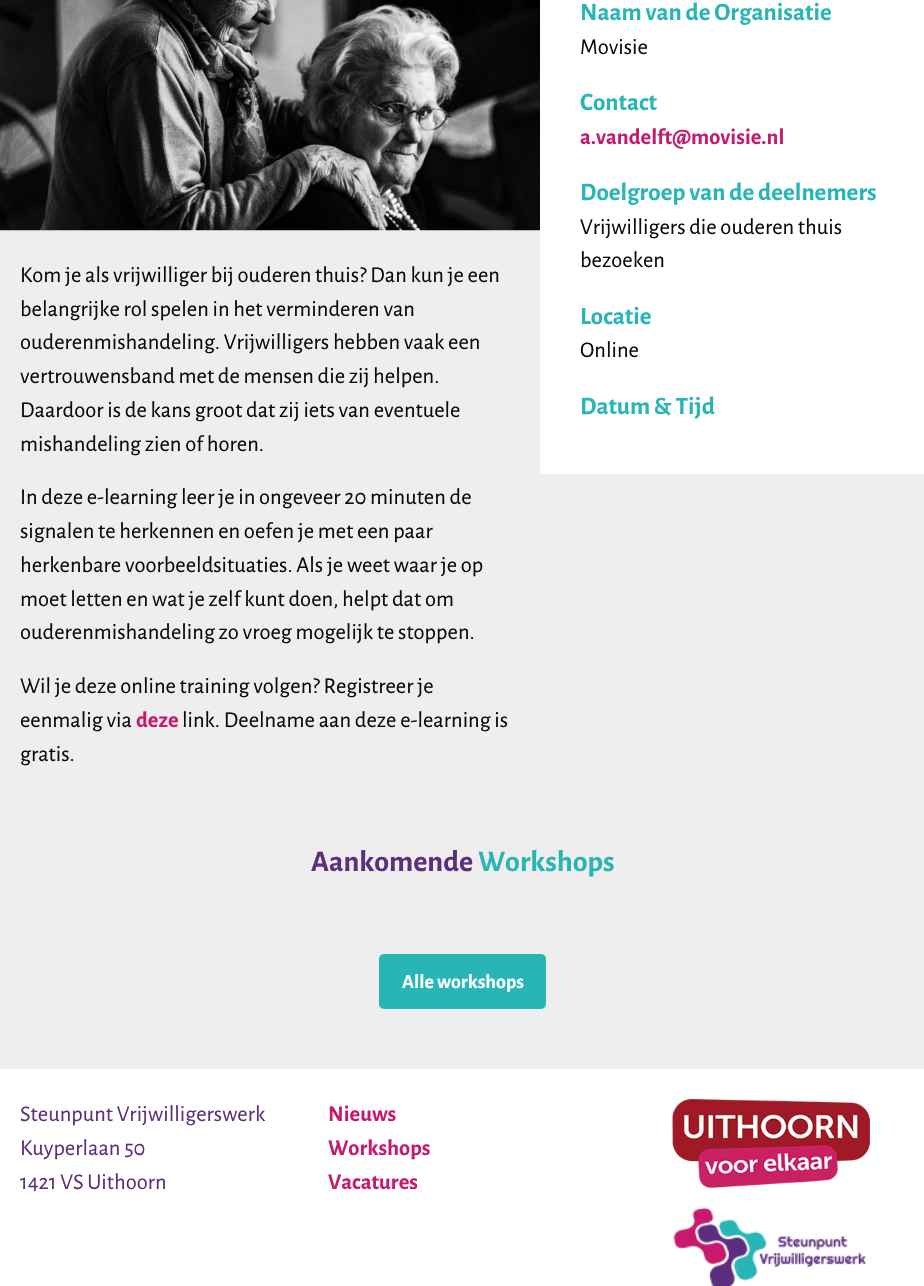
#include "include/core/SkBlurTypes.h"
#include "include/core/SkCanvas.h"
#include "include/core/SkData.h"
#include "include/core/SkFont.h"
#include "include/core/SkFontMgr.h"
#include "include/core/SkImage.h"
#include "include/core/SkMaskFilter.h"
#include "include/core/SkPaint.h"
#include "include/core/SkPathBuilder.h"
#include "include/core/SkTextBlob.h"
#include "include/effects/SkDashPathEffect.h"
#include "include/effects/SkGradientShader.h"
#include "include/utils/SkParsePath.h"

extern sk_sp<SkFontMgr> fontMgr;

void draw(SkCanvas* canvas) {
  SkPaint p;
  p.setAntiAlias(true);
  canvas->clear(SkColorSetRGB(238, 238, 238));
  p.setColor(SK_ColorWHITE);
  canvas->drawRect(SkRect::MakeLTRB(540, 0, 924, 474), p);
  canvas->drawImageRect(SkImages::DeferredFromEncodedData(SkData::MakeFromFileName("images/1.png")), SkRect::MakeLTRB(0, 0, 540, 231), SkSamplingOptions());
  p.setColor(SkColorSetRGB(40, 181, 181));
  canvas->drawRoundRect(SkRect::MakeLTRB(379, 954, 546, 1009), 5, 5, p);
  p.setColor(SK_ColorWHITE);
  canvas->drawRect(SkRect::MakeLTRB(0, 1069, 924, 1286), p);
  canvas->drawImageRect(SkImages::DeferredFromEncodedData(SkData::MakeFromFileName("images/2.png")), SkRect::MakeLTRB(672, 1099, 870, 1188), SkSamplingOptions());
  canvas->drawImageRect(SkImages::DeferredFromEncodedData(SkData::MakeFromFileName("images/3.png")), SkRect::MakeLTRB(673, 1207, 867, 1286), SkSamplingOptions());
  SkFont font1(fontMgr->matchFamilyStyle("Alegreya Sans", SkFontStyle::Bold()), 25);
  font1.setSubpixel(true);
  p.setColor(SkColorSetRGB(40, 181, 181));
  canvas->drawString("Naam van de Organisatie", 580, 20, font1, p);
  SkFont font2(fontMgr->matchFamilyStyle("Alegreya Sans", SkFontStyle::Normal()), 22.5f);
  font2.setSubpixel(true);
  p.setColor(SkColorSetRGB(10, 10, 10));
  canvas->drawString("Movisie", 580, 54, font2, p);
  p.setColor(SkColorSetRGB(40, 181, 181));
  canvas->drawString("Contact", 580, 110, font1, p);
  SkFont font3(fontMgr->matchFamilyStyle("Alegreya Sans", SkFontStyle::Bold()), 22.5f);
  font3.setSubpixel(true);
  p.setColor(SkColorSetRGB(199, 25, 110));
  canvas->drawString("a.vandelft@movisie.nl", 580, 144, font3, p);
  p.setColor(SkColorSetRGB(40, 181, 181));
  canvas->drawString("Doelgroep van de deelnemers", 580, 200, font1, p);
  p.setColor(SkColorSetRGB(10, 10, 10));
  canvas->drawString("Vrijwilligers die ouderen thuis", 580, 234, font2, p);
  canvas->drawString("bezoeken", 580, 267, font2, p);
  p.setColor(SkColorSetRGB(40, 181, 181));
  canvas->drawString("Locatie", 580, 324, font1, p);
  p.setColor(SkColorSetRGB(10, 10, 10));
  canvas->drawString("Online", 580, 357, font2, p);
  p.setColor(SkColorSetRGB(40, 181, 181));
  canvas->drawString("Datum & Tijd", 580, 414, font1, p);
  p.setColor(SkColorSetRGB(10, 10, 10));
  canvas->drawString("Kom je als vrijwilliger bij ouderen thuis? Dan kun je een", 20, 282, font2, p);
  canvas->drawString("belangrijke rol spelen in het verminderen van", 20, 316, font2, p);
  canvas->drawString("ouderenmishandeling. Vrijwilligers hebben vaak een", 20, 349, font2, p);
  canvas->drawString("vertrouwensband met de mensen die zij helpen.", 20, 383, font2, p);
  canvas->drawString("Daardoor is de kans groot dat zij iets van eventuele", 20, 417, font2, p);
  canvas->drawString("mishandeling zien of horen.", 20, 451, font2, p);
  canvas->drawString("In deze e-learning leer je in ongeveer 20 minuten de", 20, 504, font2, p);
  canvas->drawString("signalen te herkennen en oefen je met een paar", 20, 538, font2, p);
  canvas->drawString("herkenbare voorbeeldsituaties. Als je weet waar je op", 20, 572, font2, p);
  canvas->drawString("moet letten en wat je zelf kunt doen, helpt dat om", 20, 606, font2, p);
  canvas->drawString("ouderenmishandeling zo vroeg mogelijk te stoppen.", 20, 639, font2, p);
  canvas->drawString("Wil je deze online training volgen? Registreer je", 20, 693, font2, p);
  canvas->drawString("eenmalig via", 20, 727, font2, p);
  p.setColor(SkColorSetRGB(199, 25, 110));
  canvas->drawString("deze", 136, 727, font3, p);
  p.setColor(SkColorSetRGB(10, 10, 10));
  canvas->drawString("link. Deelname aan deze e-learning is", 182, 727, font2, p);
  canvas->drawString("gratis.", 20, 761, font2, p);
  SkFont font4(fontMgr->matchFamilyStyle("Alegreya Sans", SkFontStyle::Bold()), 30);
  font4.setSubpixel(true);
  p.setColor(SkColorSetRGB(92, 46, 127));
  canvas->drawString("Aankomende", 311, 871, font4, p);
  p.setColor(SkColorSetRGB(40, 181, 181));
  canvas->drawString("Workshops", 478, 871, font4, p);
  SkFont font5(fontMgr->matchFamilyStyle("Alegreya Sans", SkFontStyle::Bold()), 20);
  font5.setSubpixel(true);
  p.setColor(SK_ColorWHITE);
  canvas->drawString("Alle workshops", 402, 988, font5, p);
  p.setColor(SkColorSetRGB(92, 46, 127));
  canvas->drawString("Steunpunt Vrijwilligerswerk", 20, 1121, font2, p);
  canvas->drawString("Kuyperlaan 50", 20, 1155, font2, p);
  canvas->drawString("1421 VS Uithoorn", 20, 1189, font2, p);
  p.setColor(SkColorSetRGB(199, 25, 110));
  canvas->drawString("Nieuws", 328, 1121, font3, p);
  canvas->drawString("Workshops", 328, 1155, font3, p);
  canvas->drawString("Vacatures", 328, 1189, font3, p);
}
